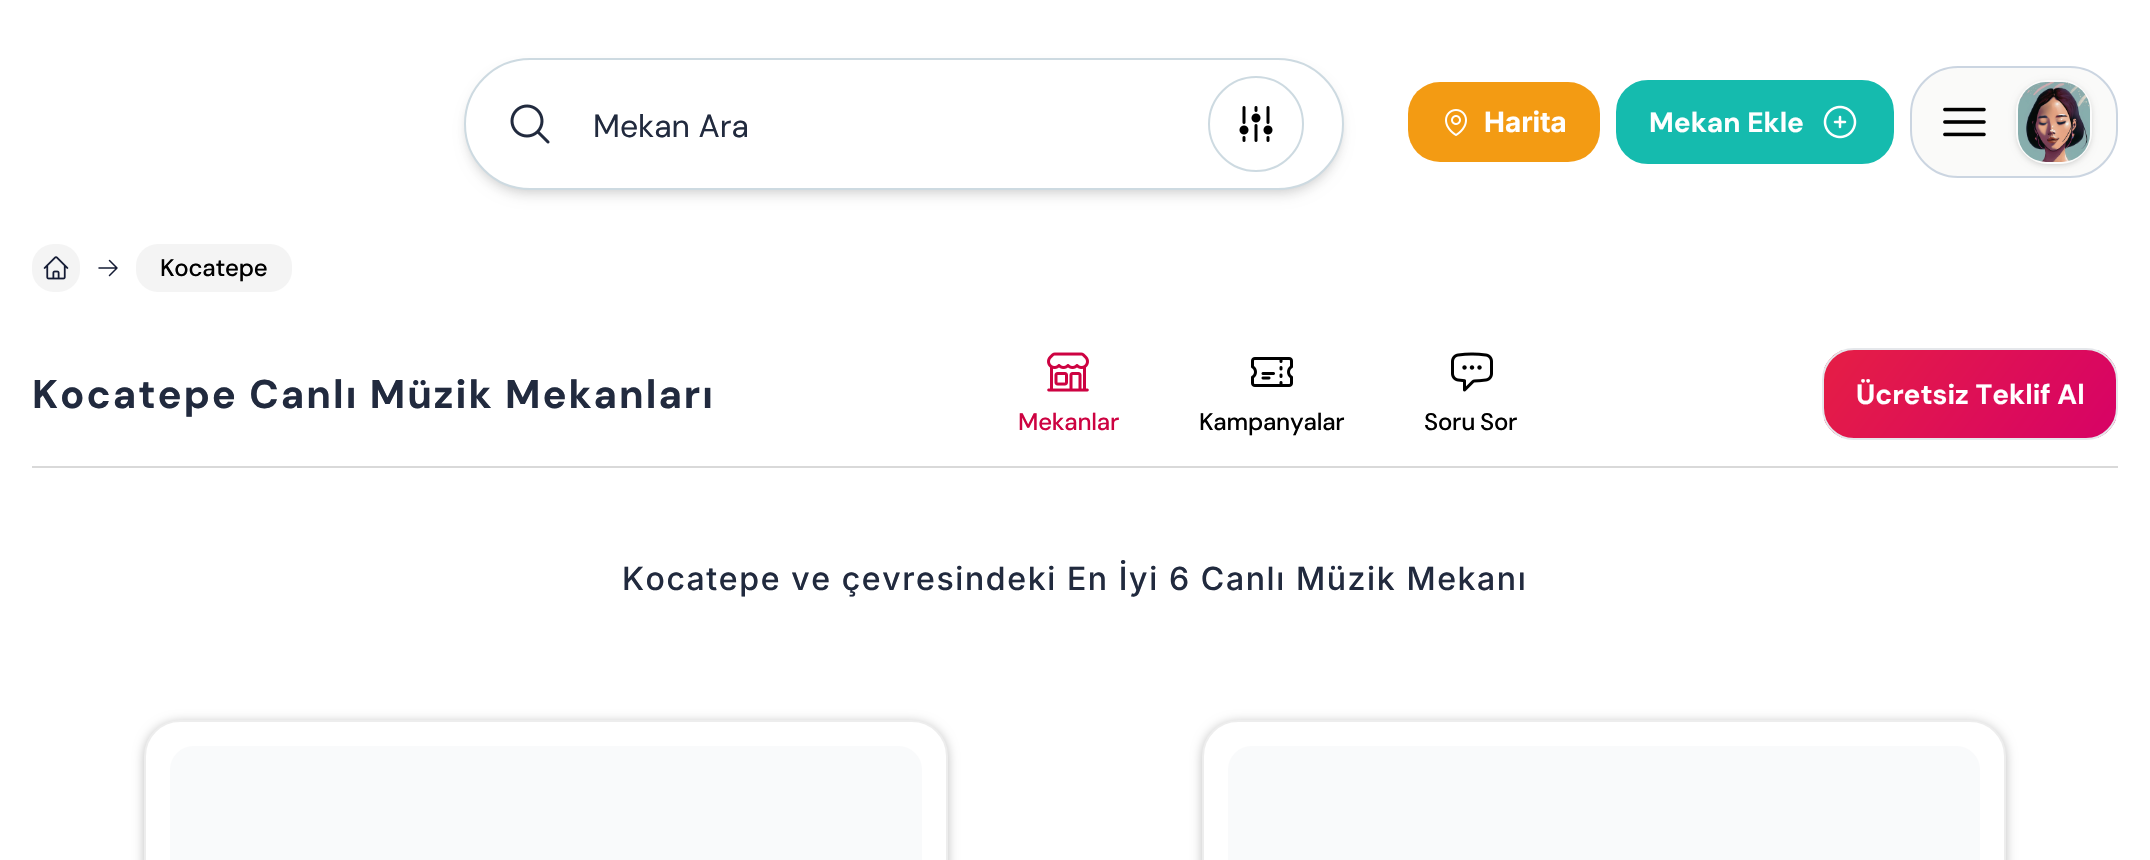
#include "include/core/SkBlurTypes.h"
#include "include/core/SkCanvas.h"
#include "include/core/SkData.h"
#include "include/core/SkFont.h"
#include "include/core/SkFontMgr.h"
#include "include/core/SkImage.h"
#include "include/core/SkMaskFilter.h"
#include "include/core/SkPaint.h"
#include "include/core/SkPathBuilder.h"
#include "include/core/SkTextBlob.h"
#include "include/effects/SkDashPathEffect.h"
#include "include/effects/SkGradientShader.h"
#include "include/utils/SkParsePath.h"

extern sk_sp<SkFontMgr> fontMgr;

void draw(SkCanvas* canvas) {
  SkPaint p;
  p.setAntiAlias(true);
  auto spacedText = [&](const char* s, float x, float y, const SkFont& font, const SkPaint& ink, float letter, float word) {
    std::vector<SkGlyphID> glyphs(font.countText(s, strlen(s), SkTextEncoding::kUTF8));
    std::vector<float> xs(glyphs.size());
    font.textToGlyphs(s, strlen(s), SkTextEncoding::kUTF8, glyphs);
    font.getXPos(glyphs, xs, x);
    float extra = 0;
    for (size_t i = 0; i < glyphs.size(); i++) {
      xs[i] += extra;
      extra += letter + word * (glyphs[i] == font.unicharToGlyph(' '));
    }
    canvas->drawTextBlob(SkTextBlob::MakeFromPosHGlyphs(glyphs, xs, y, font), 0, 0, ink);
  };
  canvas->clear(SK_ColorWHITE);
  p.setColor(SkColorSetARGB(26, 0, 0, 0));
  p.setMaskFilter(SkMaskFilter::MakeBlur(kNormal_SkBlurStyle, 4));
  canvas->drawRoundRect(SkRect::MakeLTRB(468, 66, 1340, 190), 62, 62, p);
  p.setMaskFilter(nullptr);
  p.setMaskFilter(SkMaskFilter::MakeBlur(kNormal_SkBlurStyle, 6));
  canvas->drawRoundRect(SkRect::MakeLTRB(466, 68, 1342, 196), 64, 64, p);
  p.setMaskFilter(nullptr);
  p.setColor(SK_ColorWHITE);
  canvas->drawRoundRect(SkRect::MakeLTRB(465, 59, 1343, 189), 65, 65, p);
  p.setStyle(SkPaint::kStroke_Style);
  p.setStrokeWidth(2);
  p.setColor(SkColorSetRGB(205, 218, 225));
  canvas->drawRoundRect(SkRect::MakeLTRB(465, 59, 1343, 189), 65, 65, p);
  canvas->drawImageRect(SkImages::DeferredFromEncodedData(SkData::MakeFromFileName("images/1.png")), SkRect::MakeLTRB(510, 104, 550, 144), SkSamplingOptions());
  canvas->drawCircle(1256, 124, 47, p);
  canvas->drawImageRect(SkImages::DeferredFromEncodedData(SkData::MakeFromFileName("images/2.png")), SkRect::MakeLTRB(1239, 106, 1273, 142), SkSamplingOptions());
  p.setStyle(SkPaint::kFill_Style);
  p.setColor(SkColorSetRGB(243, 155, 19));
  canvas->drawRoundRect(SkRect::MakeLTRB(1408, 82, 1600, 162), 32, 32, p);
  canvas->drawImageRect(SkImages::DeferredFromEncodedData(SkData::MakeFromFileName("images/3.png")), SkRect::MakeLTRB(1445, 109, 1467, 136), SkSamplingOptions());
  p.setColor(SkColorSetRGB(21, 187, 174));
  canvas->drawRoundRect(SkRect::MakeLTRB(1617, 81, 1893, 163), 31, 31, p);
  p.setStyle(SkPaint::kStroke_Style);
  canvas->drawRoundRect(SkRect::MakeLTRB(1617, 81, 1893, 163), 31, 31, p);
  canvas->drawImageRect(SkImages::DeferredFromEncodedData(SkData::MakeFromFileName("images/4.png")), SkRect::MakeLTRB(1823, 105, 1857, 139), SkSamplingOptions());
  p.setStyle(SkPaint::kFill_Style);
  p.setColor(SkColorSetRGB(250, 250, 249));
  canvas->drawRoundRect(SkRect::MakeLTRB(1911, 67, 2117, 177), 47, 47, p);
  p.setStyle(SkPaint::kStroke_Style);
  p.setColor(SkColorSetRGB(203, 213, 225));
  canvas->drawRoundRect(SkRect::MakeLTRB(1911, 67, 2117, 177), 47, 47, p);
  canvas->drawImageRect(SkImages::DeferredFromEncodedData(SkData::MakeFromFileName("images/5.png")), SkRect::MakeLTRB(1943, 107, 1986, 137), SkSamplingOptions());
  canvas->save();
  canvas->clipPath(SkPathBuilder(SkPathFillType::kEvenOdd).moveTo(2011, 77).lineTo(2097, 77).lineTo(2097, 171).lineTo(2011, 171).close().moveTo(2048, 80).lineTo(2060, 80).cubicTo(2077.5f, 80, 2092, 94.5f, 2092, 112).lineTo(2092, 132).cubicTo(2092, 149.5f, 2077.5f, 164, 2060, 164).lineTo(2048, 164).cubicTo(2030.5f, 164, 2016, 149.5f, 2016, 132).lineTo(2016, 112).cubicTo(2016, 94.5f, 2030.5f, 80, 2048, 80).close().detach(), true);
  p.setStyle(SkPaint::kFill_Style);
  p.setColor(SkColorSetARGB(26, 0, 0, 0));
  p.setMaskFilter(SkMaskFilter::MakeBlur(kNormal_SkBlurStyle, 2));
  canvas->drawRoundRect(SkRect::MakeLTRB(2018, 84, 2090, 164), 30, 30, p);
  p.setMaskFilter(nullptr);
  canvas->restore();
  canvas->save();
  canvas->clipPath(SkPathBuilder(SkPathFillType::kEvenOdd).moveTo(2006, 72).lineTo(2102, 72).lineTo(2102, 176).lineTo(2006, 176).close().moveTo(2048, 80).lineTo(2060, 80).cubicTo(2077.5f, 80, 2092, 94.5f, 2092, 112).lineTo(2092, 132).cubicTo(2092, 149.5f, 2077.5f, 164, 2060, 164).lineTo(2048, 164).cubicTo(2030.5f, 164, 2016, 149.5f, 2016, 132).lineTo(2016, 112).cubicTo(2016, 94.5f, 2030.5f, 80, 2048, 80).close().detach(), true);
  p.setMaskFilter(SkMaskFilter::MakeBlur(kNormal_SkBlurStyle, 3));
  canvas->drawRoundRect(SkRect::MakeLTRB(2016, 82, 2092, 166), 32, 32, p);
  p.setMaskFilter(nullptr);
  canvas->restore();
  p.setStyle(SkPaint::kStroke_Style);
  p.setColor(SkColorSetARGB(77, 255, 255, 255));
  canvas->drawRoundRect(SkRect::MakeLTRB(2017, 81, 2091, 163), 31, 31, p);
  canvas->drawImageRect(SkImages::DeferredFromEncodedData(SkData::MakeFromFileName("images/6.png")), SkRect::MakeLTRB(2018, 82, 2090, 162), SkSamplingOptions());
  p.setStyle(SkPaint::kFill_Style);
  p.setColor(SkColorSetRGB(244, 244, 244));
  canvas->drawRoundRect(SkRect::MakeLTRB(32, 244, 80, 292), 22, 22, p);
  canvas->drawImageRect(SkImages::DeferredFromEncodedData(SkData::MakeFromFileName("images/7.png")), SkRect::MakeLTRB(43, 256, 69, 280), SkSamplingOptions());
  p.setStyle(SkPaint::kStroke_Style);
  p.setStrokeWidth(1.5f);
  p.setStrokeCap(SkPaint::kRound_Cap);
  p.setStrokeJoin(SkPaint::kRound_Join);
  p.setColor(SkColorSetRGB(20, 27, 52));
  canvas->drawPath(SkPathBuilder().moveTo(109.5f, 260.5f).lineTo(117, 268).moveTo(117, 268).lineTo(109.5f, 275.5f).moveTo(117, 268).lineTo(99, 268).detach(), p);
  p.setStyle(SkPaint::kFill_Style);
  p.setColor(SkColorSetRGB(244, 244, 244));
  canvas->drawRoundRect(SkRect::MakeLTRB(136, 244, 292, 292), 22, 22, p);
  p.setColor(SkColorSetRGB(217, 217, 217));
  canvas->drawRect(SkRect::MakeLTRB(32, 466, 2118, 468), p);
  canvas->save();
  canvas->clipPath(SkPathBuilder().moveTo(1854, 348).lineTo(2086, 348).cubicTo(2103.5f, 348, 2118, 362.5f, 2118, 380).lineTo(2118, 408).cubicTo(2118, 425.5f, 2103.5f, 440, 2086, 440).lineTo(1854, 440).cubicTo(1836.5f, 440, 1822, 425.5f, 1822, 408).lineTo(1822, 380).cubicTo(1822, 362.5f, 1836.5f, 348, 1854, 348).close().detach(), true);
  {
    const SkColor colors[] = {SkColorSetRGB(229, 30, 69), SkColorSetRGB(215, 2, 102)};
    const float stops[] = {0, 1};
    const SkPoint ends[] = {{1856, 308}, {2084, 480}};
    p.setShader(SkGradientShader::MakeLinear(ends, colors, stops, 2, SkTileMode::kClamp));
    p.setAlpha(255);
  }
  canvas->drawRect(SkRect::MakeLTRB(1824, 350, 2116, 438), p);
  canvas->restore();
  p.setStyle(SkPaint::kStroke_Style);
  p.setStrokeWidth(2);
  p.setStrokeCap(SkPaint::kButt_Cap);
  p.setStrokeJoin(SkPaint::kMiter_Join);
  p.setShader(nullptr);
  p.setColor(SkColorSetRGB(229, 231, 235));
  canvas->drawRoundRect(SkRect::MakeLTRB(1823, 349, 2117, 439), 31, 31, p);
  canvas->drawImageRect(SkImages::DeferredFromEncodedData(SkData::MakeFromFileName("images/8.png")), SkRect::MakeLTRB(1047, 352, 1089, 392), SkSamplingOptions());
  canvas->drawImageRect(SkImages::DeferredFromEncodedData(SkData::MakeFromFileName("images/9.png")), SkRect::MakeLTRB(1251, 357, 1293, 387), SkSamplingOptions());
  canvas->drawImageRect(SkImages::DeferredFromEncodedData(SkData::MakeFromFileName("images/10.png")), SkRect::MakeLTRB(1451, 352, 1493, 392), SkSamplingOptions());
  p.setStyle(SkPaint::kFill_Style);
  p.setColor(SkColorSetARGB(64, 0, 0, 0));
  p.setMaskFilter(SkMaskFilter::MakeBlur(kNormal_SkBlurStyle, 5.5f));
  canvas->drawRoundRect(SkRect::MakeLTRB(144, 722, 948, 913), 36, 36, p);
  p.setMaskFilter(nullptr);
  p.setColor(SK_ColorWHITE);
  canvas->drawRoundRect(SkRect::MakeLTRB(145, 721, 947, 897), 35, 35, p);
  p.setStyle(SkPaint::kStroke_Style);
  p.setColor(SkColorSetRGB(237, 237, 237));
  canvas->drawRoundRect(SkRect::MakeLTRB(145, 721, 947, 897), 35, 35, p);
  p.setStyle(SkPaint::kFill_Style);
  p.setColor(SkColorSetRGB(249, 250, 251));
  canvas->drawRoundRect(SkRect::MakeLTRB(170, 746, 922, 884), 24, 24, p);
  p.setColor(SkColorSetARGB(64, 0, 0, 0));
  p.setMaskFilter(SkMaskFilter::MakeBlur(kNormal_SkBlurStyle, 5.5f));
  canvas->drawRoundRect(SkRect::MakeLTRB(1202, 722, 2006, 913), 36, 36, p);
  p.setMaskFilter(nullptr);
  p.setColor(SK_ColorWHITE);
  canvas->drawRoundRect(SkRect::MakeLTRB(1203, 721, 2005, 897), 35, 35, p);
  p.setStyle(SkPaint::kStroke_Style);
  p.setColor(SkColorSetRGB(237, 237, 237));
  canvas->drawRoundRect(SkRect::MakeLTRB(1203, 721, 2005, 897), 35, 35, p);
  p.setStyle(SkPaint::kFill_Style);
  p.setColor(SkColorSetRGB(249, 250, 251));
  canvas->drawRoundRect(SkRect::MakeLTRB(1228, 746, 1980, 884), 24, 24, p);
  SkFont font1(fontMgr->matchFamilyStyle("DM Sans", SkFontStyle::Normal()), 32);
  font1.setSubpixel(true);
  p.setColor(SkColorSetRGB(33, 42, 62));
  canvas->drawString("Mekan Ara", 593, 137, font1, p);
  SkFont font2(fontMgr->matchFamilyStyle("Inter", SkFontStyle::Bold()), 28);
  font2.setSubpixel(true);
  p.setColor(SK_ColorWHITE);
  canvas->drawString("Harita", 1484, 132, font2, p);
  SkFont font3(fontMgr->matchFamilyStyle("DM Sans", SkFontStyle::Bold()), 28);
  font3.setSubpixel(true);
  canvas->drawString("Mekan Ekle", 1649, 132, font3, p);
  SkFont font4(fontMgr->matchFamilyStyle("DM Sans", SkFontStyle(500, SkFontStyle::kNormal_Width, SkFontStyle::kUpright_Slant)), 24);
  font4.setSubpixel(true);
  p.setColor(SK_ColorBLACK);
  spacedText("Kocatepe", 160, 276, font4, p, -0.25f, 0);
  SkFont font5(fontMgr->matchFamilyStyle("DM Sans", SkFontStyle::Bold()), 40);
  font5.setSubpixel(true);
  p.setColor(SkColorSetRGB(33, 42, 62));
  spacedText("Kocatepe Canlı Müzik Mekanları", 32, 408, font5, p, 2, 0);
  p.setColor(SK_ColorWHITE);
  canvas->drawString("Ücretsiz Teklif Al", 1856, 404, font3, p);
  p.setColor(SkColorSetRGB(205, 2, 65));
  spacedText("Mekanlar", 1018, 430, font4, p, -0.25f, 0);
  p.setColor(SK_ColorBLACK);
  spacedText("Kampanyalar", 1199, 430, font4, p, -0.25f, 0);
  spacedText("Soru Sor", 1424, 430, font4, p, -0.25f, -1);
  SkFont font6(fontMgr->matchFamilyStyle("Inter", SkFontStyle(500, SkFontStyle::kNormal_Width, SkFontStyle::kUpright_Slant)), 32);
  font6.setSubpixel(true);
  p.setColor(SkColorSetRGB(33, 42, 62));
  spacedText("Kocatepe ve çevresindeki En İyi 6 Canlı Müzik Mekanı", 622, 590, font6, p, 1.6f, 0);
}
